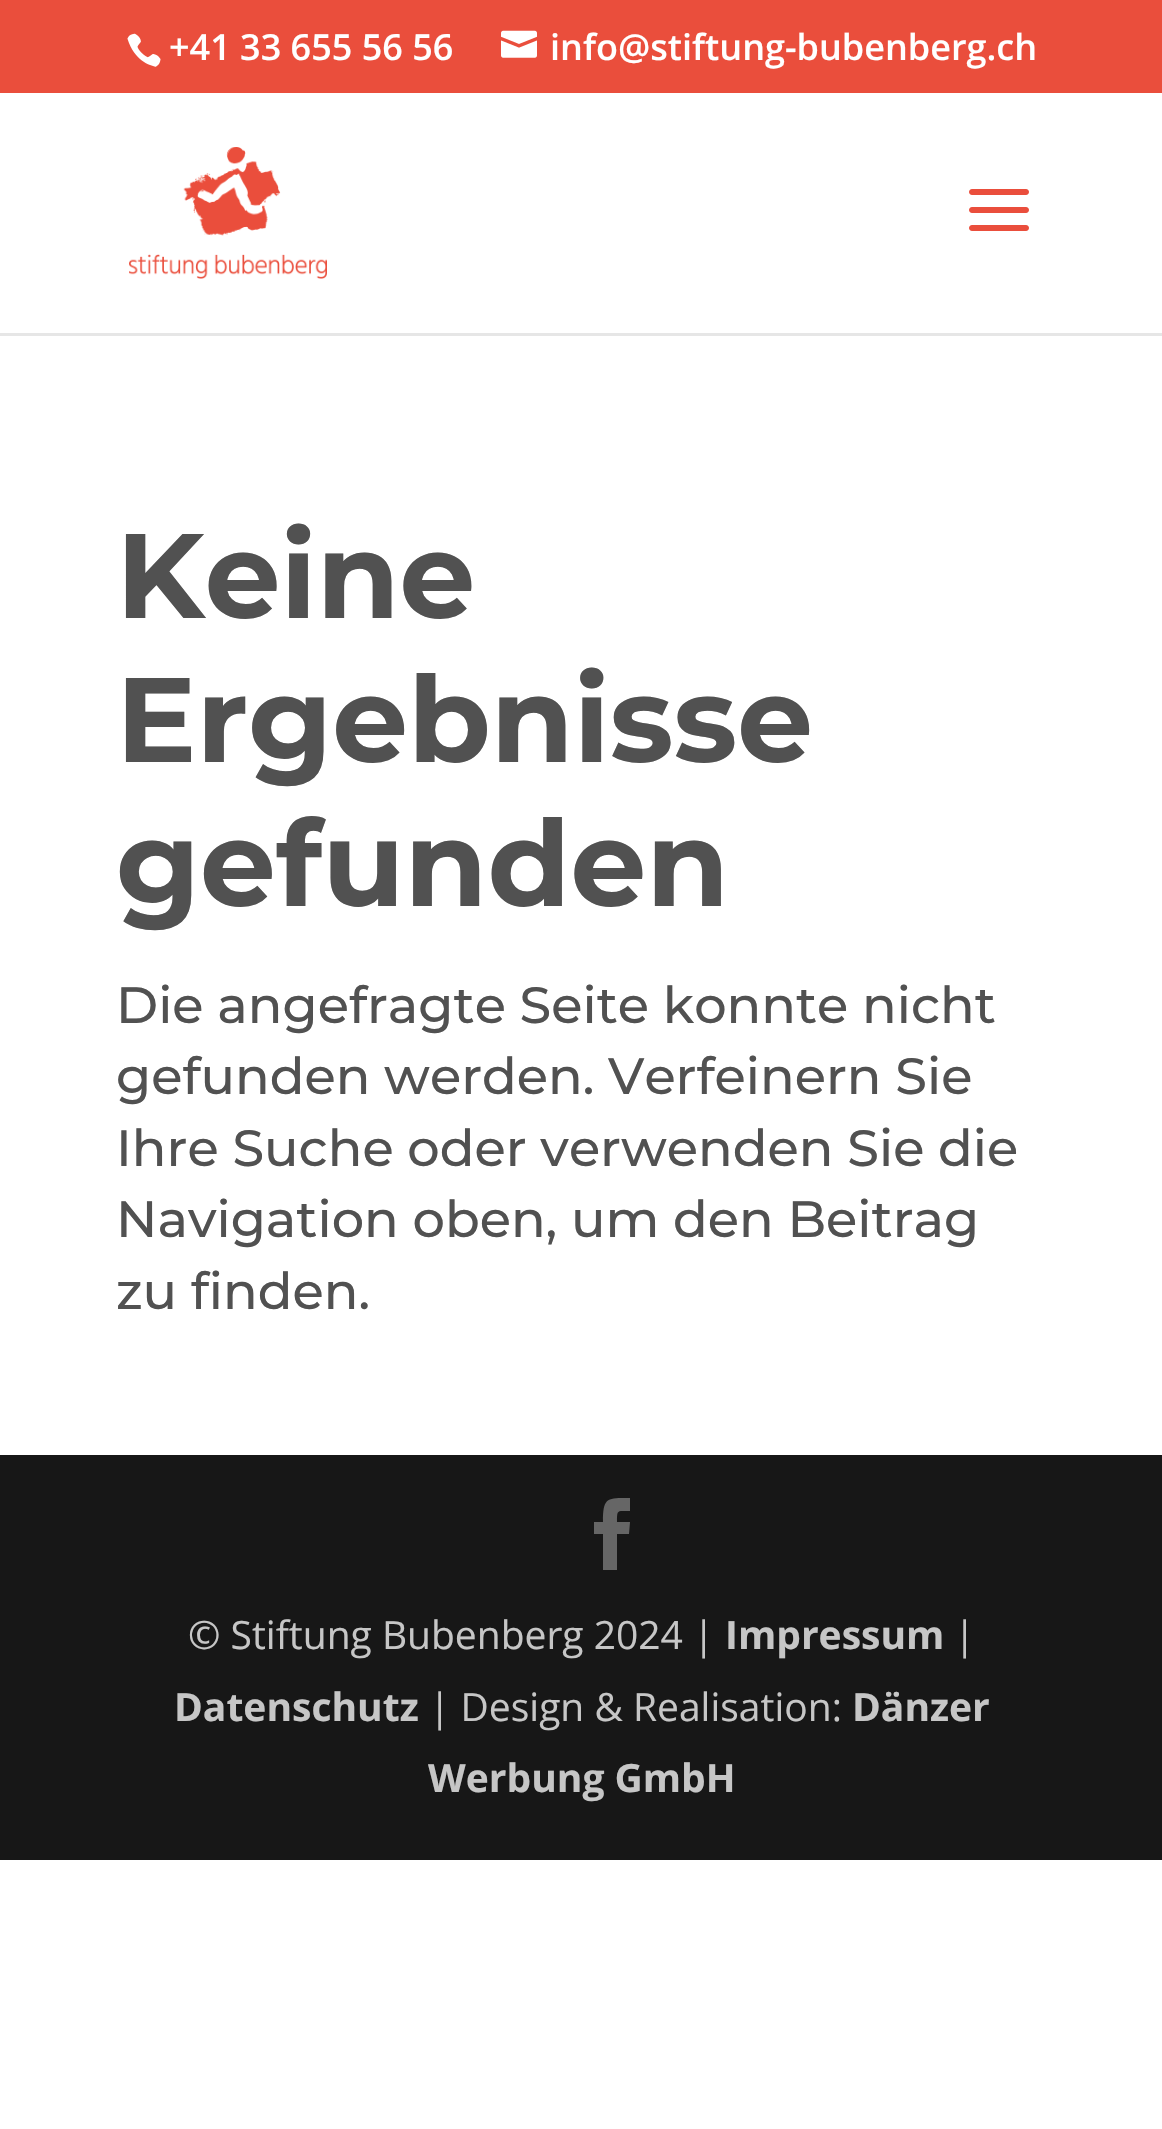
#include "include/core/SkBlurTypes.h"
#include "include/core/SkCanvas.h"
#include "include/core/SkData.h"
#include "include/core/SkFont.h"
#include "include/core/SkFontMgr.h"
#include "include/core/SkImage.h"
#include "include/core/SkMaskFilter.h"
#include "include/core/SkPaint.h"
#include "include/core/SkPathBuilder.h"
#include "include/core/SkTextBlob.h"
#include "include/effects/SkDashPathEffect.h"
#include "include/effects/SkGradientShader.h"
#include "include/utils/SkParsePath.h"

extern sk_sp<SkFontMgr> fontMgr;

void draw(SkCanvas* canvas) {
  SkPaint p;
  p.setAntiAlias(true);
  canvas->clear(SK_ColorWHITE);
  p.setColor(SkColorSetRGB(234, 78, 60));
  canvas->drawRect(SkRect::MakeLTRB(0, 0, 1162, 93), p);
  canvas->drawImageRect(SkImages::DeferredFromEncodedData(SkData::MakeFromFileName("images/1.png")), SkRect::MakeLTRB(127, 33, 161, 67), SkSamplingOptions());
  canvas->drawImageRect(SkImages::DeferredFromEncodedData(SkData::MakeFromFileName("images/2.png")), SkRect::MakeLTRB(501, 30, 537, 58), SkSamplingOptions());
  p.setColor(SkColorSetRGB(230, 230, 230));
  canvas->drawRect(SkRect::MakeLTRB(0, 333, 1162, 336), p);
  canvas->drawImageRect(SkImages::DeferredFromEncodedData(SkData::MakeFromFileName("images/3.png")), SkRect::MakeLTRB(129, 147, 327, 279), SkSamplingOptions());
  canvas->drawImageRect(SkImages::DeferredFromEncodedData(SkData::MakeFromFileName("images/4.png")), SkRect::MakeLTRB(969, 189, 1029, 231), SkSamplingOptions());
  p.setColor(SkColorSetRGB(23, 23, 23));
  canvas->drawRect(SkRect::MakeLTRB(0, 1455, 1162, 1860), p);
  p.setColor(SkColorSetRGB(102, 102, 102));
  canvas->drawPath(SkPathBuilder().moveTo(603, 1570).lineTo(617, 1570).lineTo(617, 1534).lineTo(629, 1534).lineTo(630, 1522).lineTo(617, 1522).cubicTo(617, 1509, 617, 1511, 630, 1511).lineTo(630, 1498).cubicTo(607, 1498, 603, 1497, 603, 1522).lineTo(594, 1522).lineTo(594, 1534).lineTo(603, 1534).close().detach(), p);
  SkFont font1(fontMgr->matchFamilyStyle("Open Sans", SkFontStyle(600, SkFontStyle::kNormal_Width, SkFontStyle::kUpright_Slant)), 36);
  font1.setSubpixel(true);
  p.setColor(SK_ColorWHITE);
  canvas->drawString("+41 33 655 56 56", 169, 60, font1, p);
  canvas->drawString("info@stiftung-bubenberg.ch", 550, 60, font1, p);
  SkFont font2(fontMgr->matchFamilyStyle("Montserrat", SkFontStyle(100, SkFontStyle::kNormal_Width, SkFontStyle::kUpright_Slant)), 120);
  font2.setSubpixel(true);
  p.setColor(SkColorSetRGB(81, 81, 81));
  canvas->drawString("Keine", 116, 618, font2, p);
  canvas->drawString("Ergebnisse", 116, 762, font2, p);
  canvas->drawString("gefunden", 116, 906, font2, p);
  SkFont font3(fontMgr->matchFamilyStyle("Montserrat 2", SkFontStyle(100, SkFontStyle::kNormal_Width, SkFontStyle::kUpright_Slant)), 51);
  font3.setSubpixel(true);
  canvas->drawString("Die angefragte Seite konnte nicht", 116, 1023, font3, p);
  canvas->drawString("gefunden werden. Verfeinern Sie", 116, 1094, font3, p);
  canvas->drawString("Ihre Suche oder verwenden Sie die", 116, 1166, font3, p);
  canvas->drawString("Navigation oben, um den Beitrag", 116, 1237, font3, p);
  canvas->drawString("zu finden.", 116, 1309, font3, p);
  SkFont font4(fontMgr->matchFamilyStyle("Open Sans", SkFontStyle::Normal()), 39);
  font4.setSubpixel(true);
  p.setColor(SkColorSetRGB(198, 198, 198));
  canvas->drawString("© Stiftung Bubenberg 2024 |", 188, 1649, font4, p);
  SkFont font5(fontMgr->matchFamilyStyle("Open Sans", SkFontStyle::Bold()), 39);
  font5.setSubpixel(true);
  canvas->drawString("Impressum", 725, 1649, font5, p);
  canvas->drawString("|", 954, 1649, font4, p);
  canvas->drawString("Datenschutz", 174, 1721, font5, p);
  canvas->drawString("| Design & Realisation:", 429, 1721, font4, p);
  canvas->drawString("Dänzer", 852, 1721, font5, p);
  canvas->drawString("Werbung GmbH", 428, 1792, font5, p);
}
